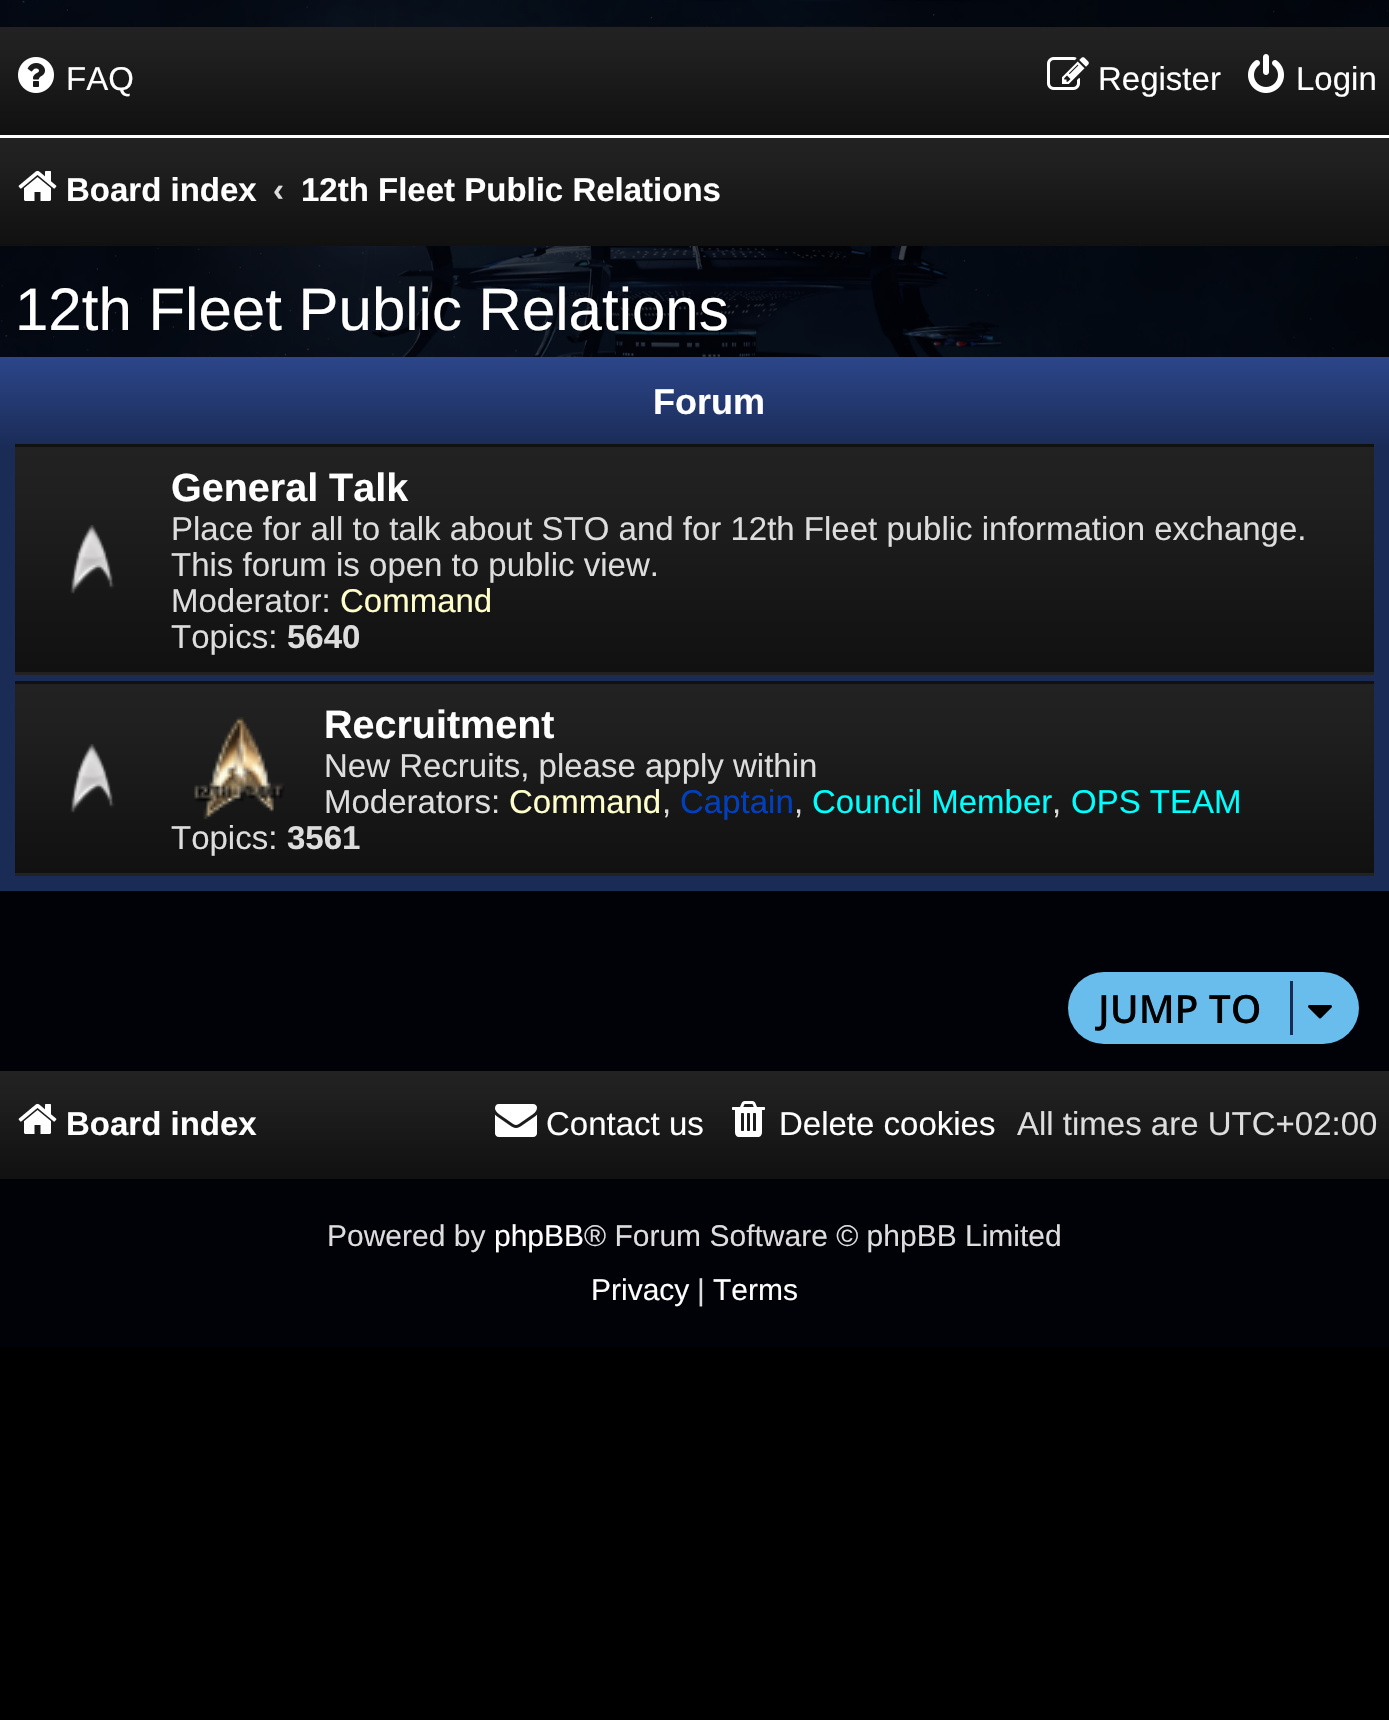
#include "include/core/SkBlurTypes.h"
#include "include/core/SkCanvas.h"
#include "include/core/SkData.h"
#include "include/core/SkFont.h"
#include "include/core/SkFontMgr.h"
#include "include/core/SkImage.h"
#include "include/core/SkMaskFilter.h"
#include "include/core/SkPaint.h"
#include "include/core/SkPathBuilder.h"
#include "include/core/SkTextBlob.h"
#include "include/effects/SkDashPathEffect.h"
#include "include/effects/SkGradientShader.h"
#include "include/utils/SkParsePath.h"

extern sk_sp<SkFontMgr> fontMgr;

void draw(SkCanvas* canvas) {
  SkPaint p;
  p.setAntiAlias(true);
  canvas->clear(SK_ColorBLACK);
  p.setColor(SkColorSetRGB(1, 2, 8));
  canvas->drawRect(SkRect::MakeLTRB(0, 891, 1389, 1347), p);
  canvas->drawImageRect(SkImages::DeferredFromEncodedData(SkData::MakeFromFileName("images/1.png")), SkRect::MakeLTRB(0, 0, 1389, 357), SkSamplingOptions());
  {
    const SkColor colors[] = {SkColorSetRGB(34, 34, 34), SkColorSetRGB(31, 31, 31), SkColorSetRGB(26, 26, 26), SkColorSetRGB(21, 21, 21), SkColorSetRGB(17, 17, 17)};
    const float stops[] = {0, 0.25f, 0.5f, 0.75f, 1};
    const SkPoint ends[] = {{695, 27}, {695, 135}};
    p.setShader(SkGradientShader::MakeLinear(ends, colors, stops, 5, SkTileMode::kClamp));
    p.setAlpha(255);
  }
  canvas->drawRect(SkRect::MakeLTRB(0, 27, 1389, 135), p);
  canvas->drawImageRect(SkImages::DeferredFromEncodedData(SkData::MakeFromFileName("images/2.png")), SkRect::MakeLTRB(18, 57, 54, 93), SkSamplingOptions());
  canvas->drawImageRect(SkImages::DeferredFromEncodedData(SkData::MakeFromFileName("images/3.png")), SkRect::MakeLTRB(1047, 57, 1089, 90), SkSamplingOptions());
  canvas->drawImageRect(SkImages::DeferredFromEncodedData(SkData::MakeFromFileName("images/4.png")), SkRect::MakeLTRB(1248, 54, 1284, 93), SkSamplingOptions());
  {
    const SkColor colors[] = {SkColorSetRGB(34, 34, 34), SkColorSetRGB(31, 31, 31), SkColorSetRGB(26, 26, 26), SkColorSetRGB(21, 21, 21), SkColorSetRGB(17, 17, 17)};
    const float stops[] = {0, 0.25f, 0.5f, 0.75f, 1};
    const SkPoint ends[] = {{695, 138}, {695, 246}};
    p.setShader(SkGradientShader::MakeLinear(ends, colors, stops, 5, SkTileMode::kClamp));
    p.setAlpha(255);
  }
  canvas->drawRect(SkRect::MakeLTRB(0, 138, 1389, 246), p);
  p.setShader(nullptr);
  p.setColor(SK_ColorWHITE);
  canvas->drawRect(SkRect::MakeLTRB(0, 135, 1389, 138), p);
  canvas->drawImageRect(SkImages::DeferredFromEncodedData(SkData::MakeFromFileName("images/5.png")), SkRect::MakeLTRB(18, 170, 57, 201), SkSamplingOptions());
  {
    const SkColor colors[] = {SkColorSetRGB(44, 70, 138), SkColorSetRGB(26, 43, 86)};
    const float stops[] = {0, 0.17f};
    const SkPoint ends[] = {{695, 357}, {695, 891}};
    p.setShader(SkGradientShader::MakeLinear(ends, colors, stops, 2, SkTileMode::kClamp));
    p.setAlpha(255);
  }
  canvas->drawRect(SkRect::MakeLTRB(0, 357, 1389, 891), p);
  {
    const SkColor colors[] = {SkColorSetRGB(34, 34, 34), SkColorSetRGB(31, 31, 31), SkColorSetRGB(26, 26, 26), SkColorSetRGB(21, 21, 21), SkColorSetRGB(17, 17, 17)};
    const float stops[] = {0, 0.25f, 0.5f, 0.75f, 1};
    const SkPoint ends[] = {{695, 222}, {695, 447}};
    p.setShader(SkGradientShader::MakeLinear(ends, colors, stops, 5, SkTileMode::kClamp));
    p.setAlpha(255);
  }
  canvas->drawRect(SkRect::MakeLTRB(15, 444, 1374, 447), p);
  {
    const SkColor colors[] = {SkColorSetRGB(34, 34, 34), SkColorSetRGB(31, 31, 31), SkColorSetRGB(26, 26, 26), SkColorSetRGB(21, 21, 21), SkColorSetRGB(17, 17, 17)};
    const float stops[] = {0, 0.25f, 0.5f, 0.75f, 1};
    const SkPoint ends[] = {{695, 447}, {695, 672}};
    p.setShader(SkGradientShader::MakeLinear(ends, colors, stops, 5, SkTileMode::kClamp));
    p.setAlpha(255);
  }
  canvas->drawRect(SkRect::MakeLTRB(15, 447, 1374, 672), p);
  {
    const SkColor colors[] = {SkColorSetRGB(34, 34, 34), SkColorSetRGB(31, 31, 31), SkColorSetRGB(26, 26, 26), SkColorSetRGB(21, 21, 21), SkColorSetRGB(17, 17, 17)};
    const float stops[] = {0, 0.25f, 0.5f, 0.75f, 1};
    const SkPoint ends[] = {{695, 672}, {695, 897}};
    p.setShader(SkGradientShader::MakeLinear(ends, colors, stops, 5, SkTileMode::kClamp));
    p.setAlpha(255);
  }
  canvas->drawRect(SkRect::MakeLTRB(15, 672, 1374, 675), p);
  canvas->drawImageRect(SkImages::DeferredFromEncodedData(SkData::MakeFromFileName("images/6.png")), SkRect::MakeLTRB(70, 525, 115, 594), SkSamplingOptions());
  {
    const SkColor colors[] = {SkColorSetRGB(34, 34, 34), SkColorSetRGB(31, 31, 31), SkColorSetRGB(26, 26, 26), SkColorSetRGB(21, 21, 21), SkColorSetRGB(17, 17, 17)};
    const float stops[] = {0, 0.25f, 0.5f, 0.75f, 1};
    const SkPoint ends[] = {{695, 495}, {695, 684}};
    p.setShader(SkGradientShader::MakeLinear(ends, colors, stops, 5, SkTileMode::kClamp));
    p.setAlpha(255);
  }
  canvas->drawRect(SkRect::MakeLTRB(15, 681, 1374, 684), p);
  {
    const SkColor colors[] = {SkColorSetRGB(34, 34, 34), SkColorSetRGB(31, 31, 31), SkColorSetRGB(26, 26, 26), SkColorSetRGB(21, 21, 21), SkColorSetRGB(17, 17, 17)};
    const float stops[] = {0, 0.25f, 0.5f, 0.75f, 1};
    const SkPoint ends[] = {{695, 684}, {695, 873}};
    p.setShader(SkGradientShader::MakeLinear(ends, colors, stops, 5, SkTileMode::kClamp));
    p.setAlpha(255);
  }
  canvas->drawRect(SkRect::MakeLTRB(15, 684, 1374, 873), p);
  {
    const SkColor colors[] = {SkColorSetRGB(34, 34, 34), SkColorSetRGB(31, 31, 31), SkColorSetRGB(26, 26, 26), SkColorSetRGB(21, 21, 21), SkColorSetRGB(17, 17, 17)};
    const float stops[] = {0, 0.25f, 0.5f, 0.75f, 1};
    const SkPoint ends[] = {{695, 873}, {695, 1062}};
    p.setShader(SkGradientShader::MakeLinear(ends, colors, stops, 5, SkTileMode::kClamp));
    p.setAlpha(255);
  }
  canvas->drawRect(SkRect::MakeLTRB(15, 873, 1374, 876), p);
  canvas->drawImageRect(SkImages::DeferredFromEncodedData(SkData::MakeFromFileName("images/7.png")), SkRect::MakeLTRB(70, 744, 115, 813), SkSamplingOptions());
  canvas->drawImageRect(SkImages::DeferredFromEncodedData(SkData::MakeFromFileName("images/8.png")), SkRect::MakeLTRB(194, 717, 285, 819), SkSamplingOptions());
  p.setShader(nullptr);
  p.setColor(SkColorSetRGB(104, 189, 236));
  canvas->drawRoundRect(SkRect::MakeLTRB(1068, 972, 1359, 1044), 36, 36, p);
  p.setColor(SkColorSetRGB(26, 43, 86));
  canvas->drawRect(SkRect::MakeLTRB(1290, 981, 1293, 1035), p);
  canvas->drawImageRect(SkImages::DeferredFromEncodedData(SkData::MakeFromFileName("images/9.png")), SkRect::MakeLTRB(1308, 1005, 1332, 1019), SkSamplingOptions());
  {
    const SkColor colors[] = {SkColorSetRGB(34, 34, 34), SkColorSetRGB(31, 31, 31), SkColorSetRGB(26, 26, 26), SkColorSetRGB(21, 21, 21), SkColorSetRGB(17, 17, 17)};
    const float stops[] = {0, 0.25f, 0.5f, 0.75f, 1};
    const SkPoint ends[] = {{695, 1071}, {695, 1179}};
    p.setShader(SkGradientShader::MakeLinear(ends, colors, stops, 5, SkTileMode::kClamp));
    p.setAlpha(255);
  }
  canvas->drawRect(SkRect::MakeLTRB(0, 1071, 1389, 1179), p);
  canvas->drawImageRect(SkImages::DeferredFromEncodedData(SkData::MakeFromFileName("images/5.png")), SkRect::MakeLTRB(18, 1103, 57, 1134), SkSamplingOptions());
  canvas->drawImageRect(SkImages::DeferredFromEncodedData(SkData::MakeFromFileName("images/10.png")), SkRect::MakeLTRB(495, 1104, 537, 1137), SkSamplingOptions());
  canvas->drawImageRect(SkImages::DeferredFromEncodedData(SkData::MakeFromFileName("images/11.png")), SkRect::MakeLTRB(732, 1101, 765, 1137), SkSamplingOptions());
  SkFont font1(fontMgr->matchFamilyStyle("Liberation Sans", SkFontStyle::Normal()), 33);
  font1.setSubpixel(true);
  p.setShader(nullptr);
  p.setColor(SK_ColorWHITE);
  canvas->drawString("FAQ", 66, 90, font1, p);
  canvas->drawString("Register", 1098, 90, font1, p);
  canvas->drawString("Login", 1296, 90, font1, p);
  SkFont font2(fontMgr->matchFamilyStyle("Liberation Sans", SkFontStyle::Bold()), 33);
  font2.setSubpixel(true);
  canvas->drawString("Board index", 66, 201, font2, p);
  p.setColor(SkColorSetRGB(221, 221, 221));
  canvas->drawString("‹", 273, 201, font2, p);
  p.setColor(SK_ColorWHITE);
  canvas->drawString("12th Fleet Public Relations", 301, 201, font2, p);
  SkFont font3(fontMgr->matchFamilyStyle("Liberation Sans", SkFontStyle::Normal()), 60);
  font3.setSubpixel(true);
  canvas->drawString("12th Fleet Public Relations", 15, 330, font3, p);
  SkFont font4(fontMgr->matchFamilyStyle("Liberation Sans", SkFontStyle::Bold()), 36);
  font4.setSubpixel(true);
  canvas->drawString("Forum", 653, 414, font4, p);
  SkFont font5(fontMgr->matchFamilyStyle("Liberation Sans", SkFontStyle::Bold()), 39.5f);
  font5.setSubpixel(true);
  canvas->drawString("General Talk", 171, 501, font5, p);
  p.setColor(SkColorSetRGB(221, 221, 221));
  canvas->drawString("Place for all to talk about STO and for 12th Fleet public information exchange.", 171, 540, font1, p);
  canvas->drawString("This forum is open to public view.", 171, 576, font1, p);
  canvas->drawString("Moderator:", 171, 612, font1, p);
  p.setColor(SkColorSetRGB(255, 255, 204));
  canvas->drawString("Command", 340, 612, font1, p);
  p.setColor(SkColorSetRGB(221, 221, 221));
  canvas->drawString("Topics:", 171, 648, font1, p);
  canvas->drawString("5640", 287, 648, font2, p);
  p.setColor(SK_ColorWHITE);
  canvas->drawString("Recruitment", 324, 738, font5, p);
  p.setColor(SkColorSetRGB(221, 221, 221));
  canvas->drawString("New Recruits, please apply within", 324, 777, font1, p);
  canvas->drawString("Moderators:", 324, 813, font1, p);
  p.setColor(SkColorSetRGB(255, 255, 204));
  canvas->drawString("Command", 509, 813, font1, p);
  p.setColor(SkColorSetRGB(221, 221, 221));
  canvas->drawString(",", 662, 813, font1, p);
  p.setColor(SkColorSetRGB(0, 64, 191));
  canvas->drawString("Captain", 680, 813, font1, p);
  p.setColor(SkColorSetRGB(221, 221, 221));
  canvas->drawString(",", 794, 813, font1, p);
  p.setColor(SkColorSetRGB(0, 255, 255));
  canvas->drawString("Council Member", 812, 813, font1, p);
  p.setColor(SkColorSetRGB(221, 221, 221));
  canvas->drawString(",", 1052, 813, font1, p);
  p.setColor(SkColorSetRGB(0, 255, 255));
  canvas->drawString("OPS TEAM", 1071, 813, font1, p);
  p.setColor(SkColorSetRGB(221, 221, 221));
  canvas->drawString("Topics:", 171, 849, font1, p);
  canvas->drawString("3561", 287, 849, font2, p);
  SkFont font6(fontMgr->matchFamilyStyle("Open Sans", SkFontStyle(600, SkFontStyle::kNormal_Width, SkFontStyle::kUpright_Slant)), 39);
  font6.setSubpixel(true);
  p.setColor(SK_ColorBLACK);
  canvas->drawString("JUMP TO", 1098, 1023, font6, p);
  p.setColor(SK_ColorWHITE);
  canvas->drawString("Board index", 66, 1135, font2, p);
  canvas->drawString("Contact us", 546, 1135, font1, p);
  canvas->drawString("Delete cookies", 779, 1135, font1, p);
  p.setColor(SkColorSetRGB(221, 221, 221));
  canvas->drawString("All times are UTC+02:00", 1017, 1135, font1, p);
  SkFont font7(fontMgr->matchFamilyStyle("Liberation Sans", SkFontStyle::Normal()), 30);
  font7.setSubpixel(true);
  canvas->drawString("Powered by", 327, 1246, font7, p);
  p.setColor(SK_ColorWHITE);
  canvas->drawString("phpBB", 494, 1246, font7, p);
  p.setColor(SkColorSetRGB(221, 221, 221));
  canvas->drawString("® Forum Software © phpBB Limited", 584, 1246, font7, p);
  p.setColor(SK_ColorWHITE);
  canvas->drawString("Privacy", 591, 1300, font7, p);
  p.setColor(SkColorSetRGB(221, 221, 221));
  canvas->drawString("|", 697, 1300, font7, p);
  p.setColor(SK_ColorWHITE);
  canvas->drawString("Terms", 713, 1300, font7, p);
}
